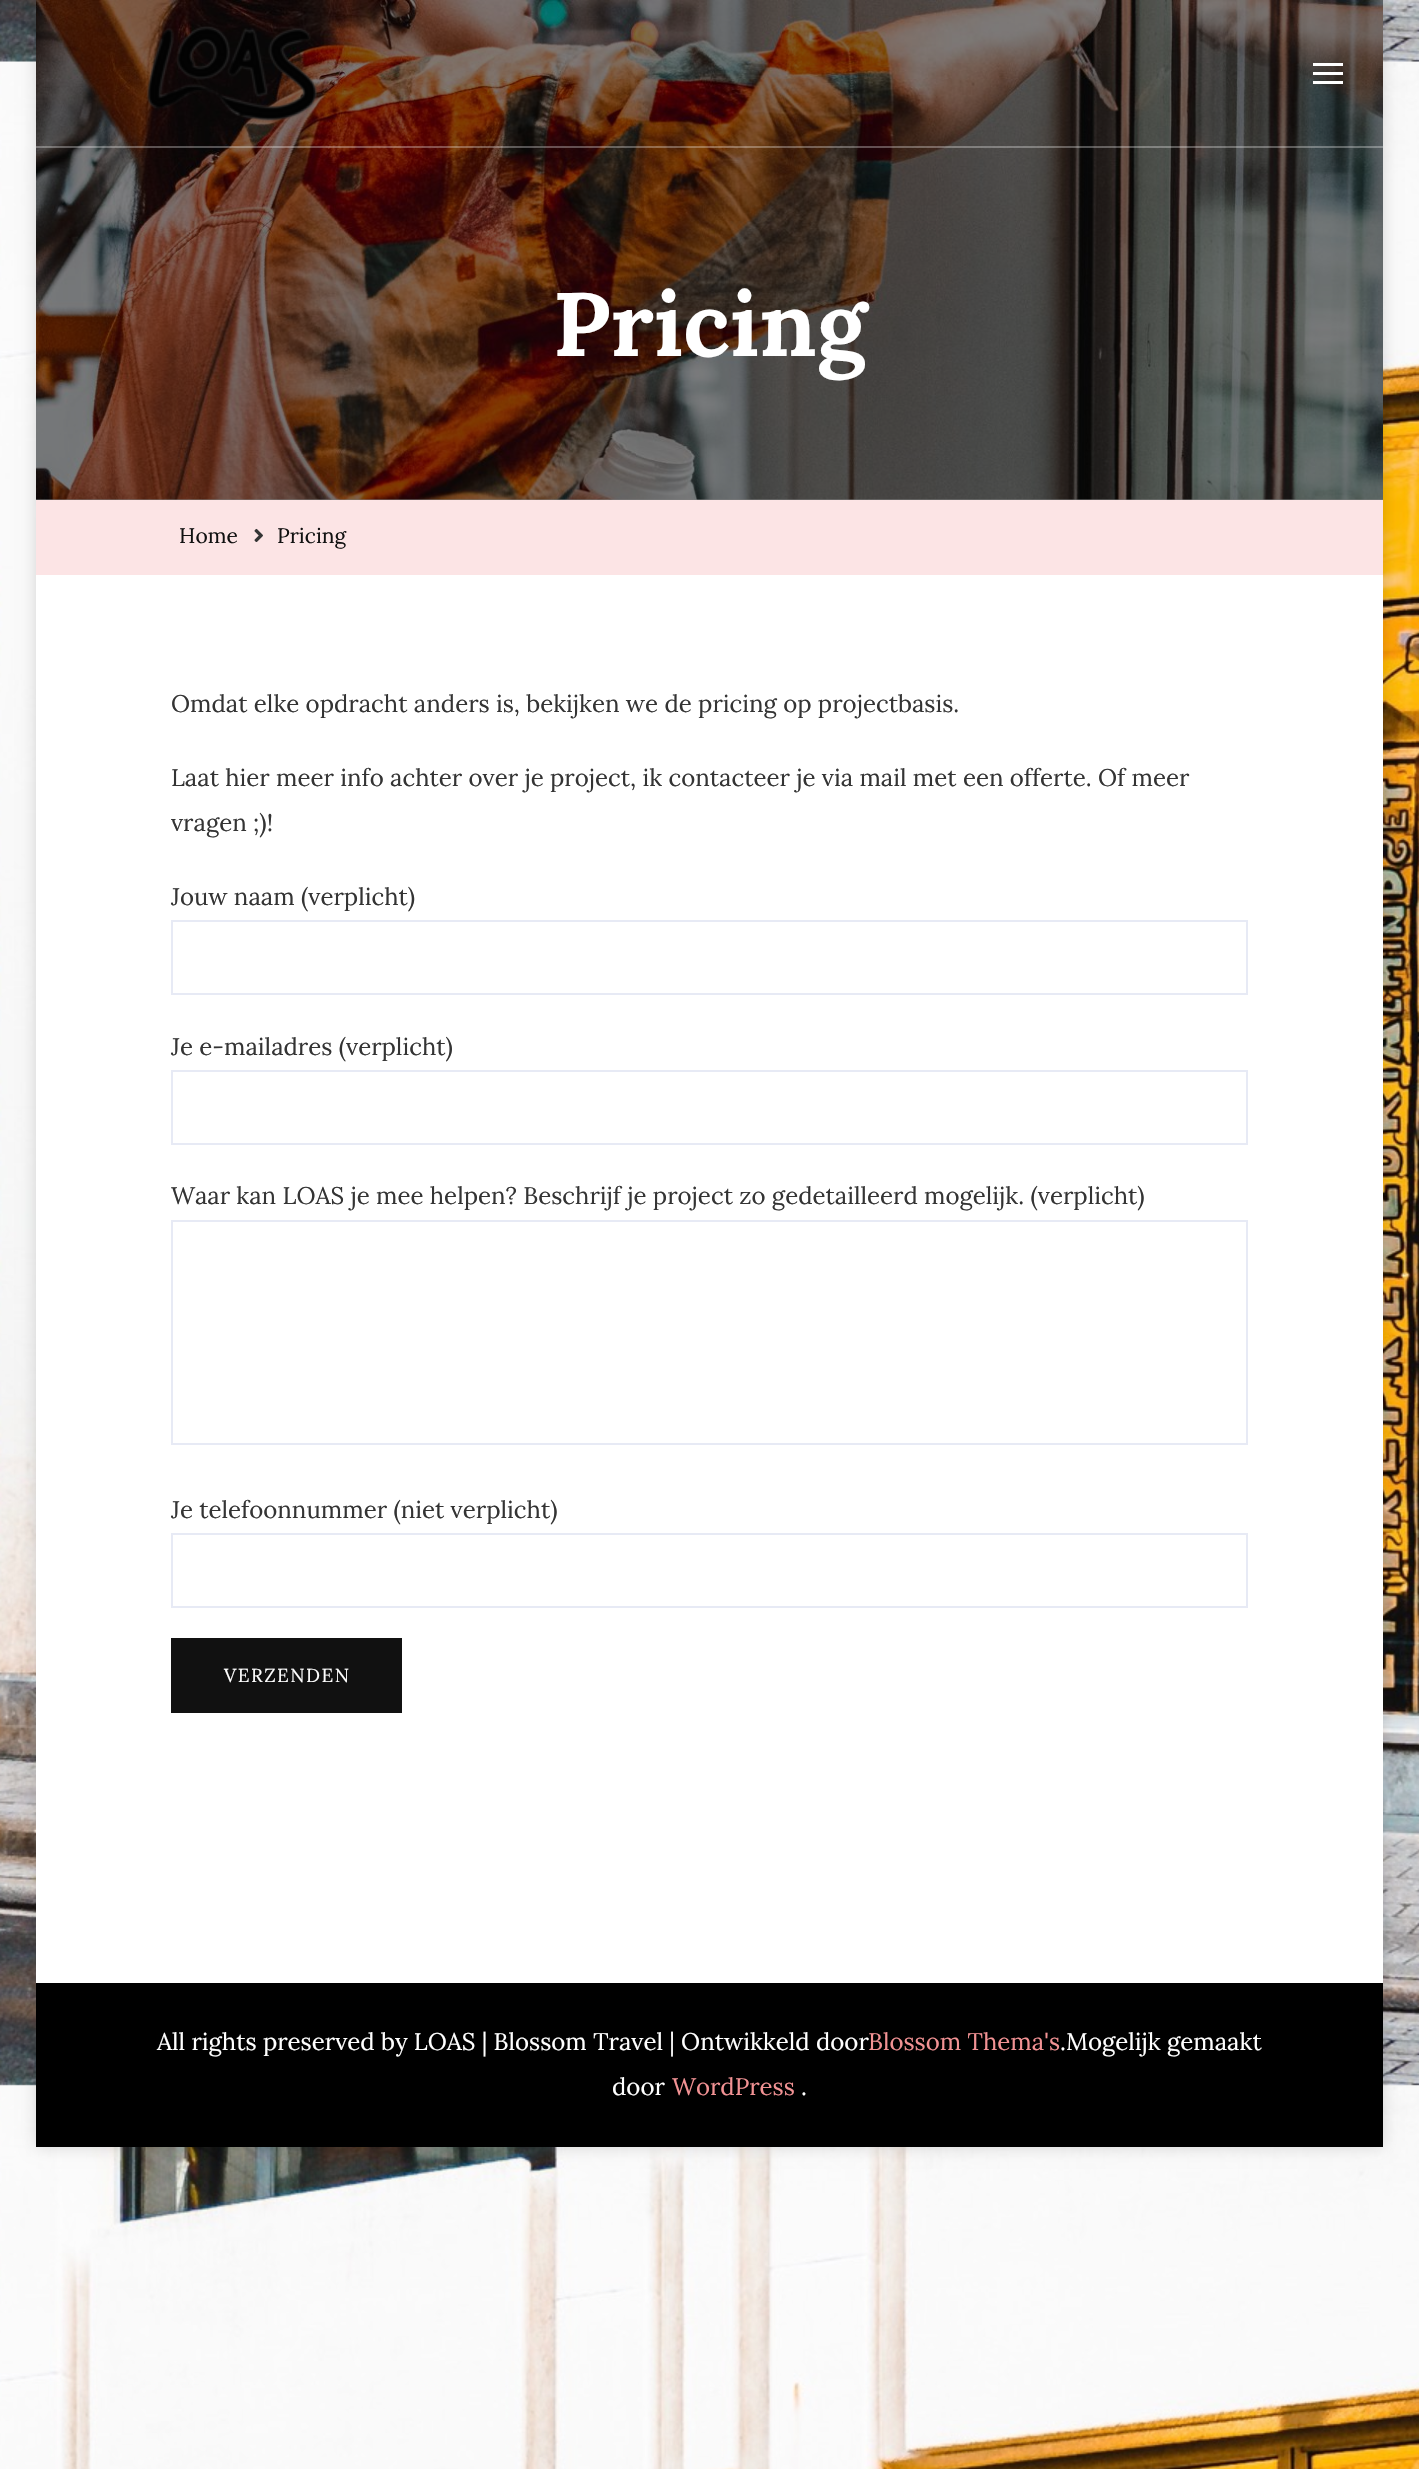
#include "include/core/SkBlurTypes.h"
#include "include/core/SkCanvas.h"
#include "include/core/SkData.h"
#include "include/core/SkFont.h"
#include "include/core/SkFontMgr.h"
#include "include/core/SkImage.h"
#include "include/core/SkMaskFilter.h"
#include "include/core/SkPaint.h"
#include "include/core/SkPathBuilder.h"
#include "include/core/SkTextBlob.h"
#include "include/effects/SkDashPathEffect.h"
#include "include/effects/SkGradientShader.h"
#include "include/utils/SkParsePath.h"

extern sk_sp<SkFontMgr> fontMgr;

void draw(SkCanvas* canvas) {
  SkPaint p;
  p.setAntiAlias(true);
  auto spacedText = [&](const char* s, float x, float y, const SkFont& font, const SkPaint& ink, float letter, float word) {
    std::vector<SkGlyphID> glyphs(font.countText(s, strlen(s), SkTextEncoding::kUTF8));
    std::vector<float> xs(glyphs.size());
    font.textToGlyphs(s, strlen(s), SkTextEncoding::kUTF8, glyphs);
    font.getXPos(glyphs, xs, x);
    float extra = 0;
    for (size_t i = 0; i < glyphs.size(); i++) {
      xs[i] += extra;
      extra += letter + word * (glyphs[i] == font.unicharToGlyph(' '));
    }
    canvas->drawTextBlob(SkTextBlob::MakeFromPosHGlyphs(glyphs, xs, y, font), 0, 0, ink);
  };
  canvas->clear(SK_ColorWHITE);
  canvas->drawImageRect(SkImages::DeferredFromEncodedData(SkData::MakeFromFileName("images/1.png")), SkRect::MakeLTRB(0, 0, 1419, 2469), SkSamplingOptions());
  p.setColor(SkColorSetARGB(38, 0, 0, 0));
  p.setMaskFilter(SkMaskFilter::MakeBlur(kNormal_SkBlurStyle, 7.5f));
  canvas->drawRect(SkRect::MakeLTRB(36, 0, 1383, 2147), p);
  p.setMaskFilter(nullptr);
  p.setColor(SK_ColorWHITE);
  canvas->drawRect(SkRect::MakeLTRB(36, 499, 1383, 1983), p);
  canvas->drawImageRect(SkImages::DeferredFromEncodedData(SkData::MakeFromFileName("images/3.png")), SkRect::MakeLTRB(36, 0, 1383, 500), SkSamplingOptions());
  p.setColor(SkColorSetARGB(128, 0, 0, 0));
  canvas->drawRect(SkRect::MakeLTRB(36, 0, 1383, 500), p);
  p.setColor(SkColorSetARGB(77, 255, 255, 255));
  canvas->drawRect(SkRect::MakeLTRB(36, 146, 1383, 148), p);
  canvas->drawImageRect(SkImages::DeferredFromEncodedData(SkData::MakeFromFileName("images/2.png")), SkRect::MakeLTRB(147, 26, 317, 122), SkSamplingOptions());
  p.setColor(SK_ColorWHITE);
  canvas->drawRect(SkRect::MakeLTRB(1313, 63, 1343, 66), p);
  canvas->drawRect(SkRect::MakeLTRB(1313, 72, 1343, 75), p);
  canvas->drawRect(SkRect::MakeLTRB(1313, 81, 1343, 84), p);
  p.setColor(SkColorSetRGB(252, 228, 229));
  canvas->drawRect(SkRect::MakeLTRB(36, 500, 1383, 575), p);
  canvas->drawImageRect(SkImages::DeferredFromEncodedData(SkData::MakeFromFileName("images/4.png")), SkRect::MakeLTRB(254, 528, 263, 542), SkSamplingOptions());
  p.setStyle(SkPaint::kStroke_Style);
  p.setStrokeWidth(2);
  p.setColor(SkColorSetRGB(231, 234, 245));
  canvas->drawRect(SkRect::MakeLTRB(172, 921, 1247, 994), p);
  canvas->drawRect(SkRect::MakeLTRB(172, 1071, 1247, 1144), p);
  canvas->drawRect(SkRect::MakeLTRB(172, 1221, 1247, 1444), p);
  canvas->drawRect(SkRect::MakeLTRB(172, 1534, 1247, 1607), p);
  p.setStyle(SkPaint::kFill_Style);
  p.setColor(SkColorSetRGB(17, 17, 17));
  canvas->drawRect(SkRect::MakeLTRB(171, 1638, 402, 1713), p);
  p.setColor(SK_ColorBLACK);
  canvas->drawRect(SkRect::MakeLTRB(36, 1983, 1383, 2147), p);
  SkFont font1(fontMgr->matchFamilyStyle("Lora", SkFontStyle::Bold()), 90);
  font1.setSubpixel(true);
  p.setColor(SK_ColorWHITE);
  canvas->drawString("Pricing", 553, 356, font1, p);
  SkFont font2(fontMgr->matchFamilyStyle("Lora", SkFontStyle::Normal()), 21);
  font2.setSubpixel(true);
  p.setColor(SkColorSetRGB(17, 17, 17));
  canvas->drawString("Home", 179, 543, font2, p);
  canvas->drawString("Pricing", 277, 543, font2, p);
  SkFont font3(fontMgr->matchFamilyStyle("Lora", SkFontStyle::Normal()), 24);
  font3.setSubpixel(true);
  p.setColor(SkColorSetRGB(52, 52, 52));
  canvas->drawString("Omdat elke opdracht anders is, bekijken we de pricing op projectbasis.", 171, 712, font3, p);
  canvas->drawString("Laat hier meer info achter over je project, ik contacteer je via mail met een offerte. Of meer", 171, 786, font3, p);
  canvas->drawString("vragen ;)!", 171, 831, font3, p);
  canvas->drawString("Jouw naam (verplicht)", 171, 905, font3, p);
  canvas->drawString("Je e-mailadres (verplicht)", 171, 1055, font3, p);
  canvas->drawString("Waar kan LOAS je mee helpen? Beschrijf je project zo gedetailleerd mogelijk. (verplicht)", 171, 1204, font3, p);
  canvas->drawString("Je telefoonnummer (niet verplicht)", 171, 1518, font3, p);
  SkFont font4(fontMgr->matchFamilyStyle("Lora", SkFontStyle::Normal()), 18.75f);
  font4.setSubpixel(true);
  p.setColor(SK_ColorWHITE);
  spacedText("VERZENDEN", 224, 1682, font4, p, 1.5f, 0);
  canvas->drawString("All rights preserved by LOAS | Blossom Travel | Ontwikkeld door", 157, 2050, font3, p);
  p.setColor(SkColorSetRGB(242, 146, 148));
  canvas->drawString("Blossom Thema's", 868, 2050, font3, p);
  p.setColor(SK_ColorWHITE);
  canvas->drawString(".Mogelijk gemaakt", 1060, 2050, font3, p);
  canvas->drawString("door", 612, 2095, font3, p);
  p.setColor(SkColorSetRGB(242, 146, 148));
  canvas->drawString("WordPress", 672, 2095, font3, p);
  p.setColor(SK_ColorWHITE);
  canvas->drawString(".", 801, 2095, font3, p);
}
